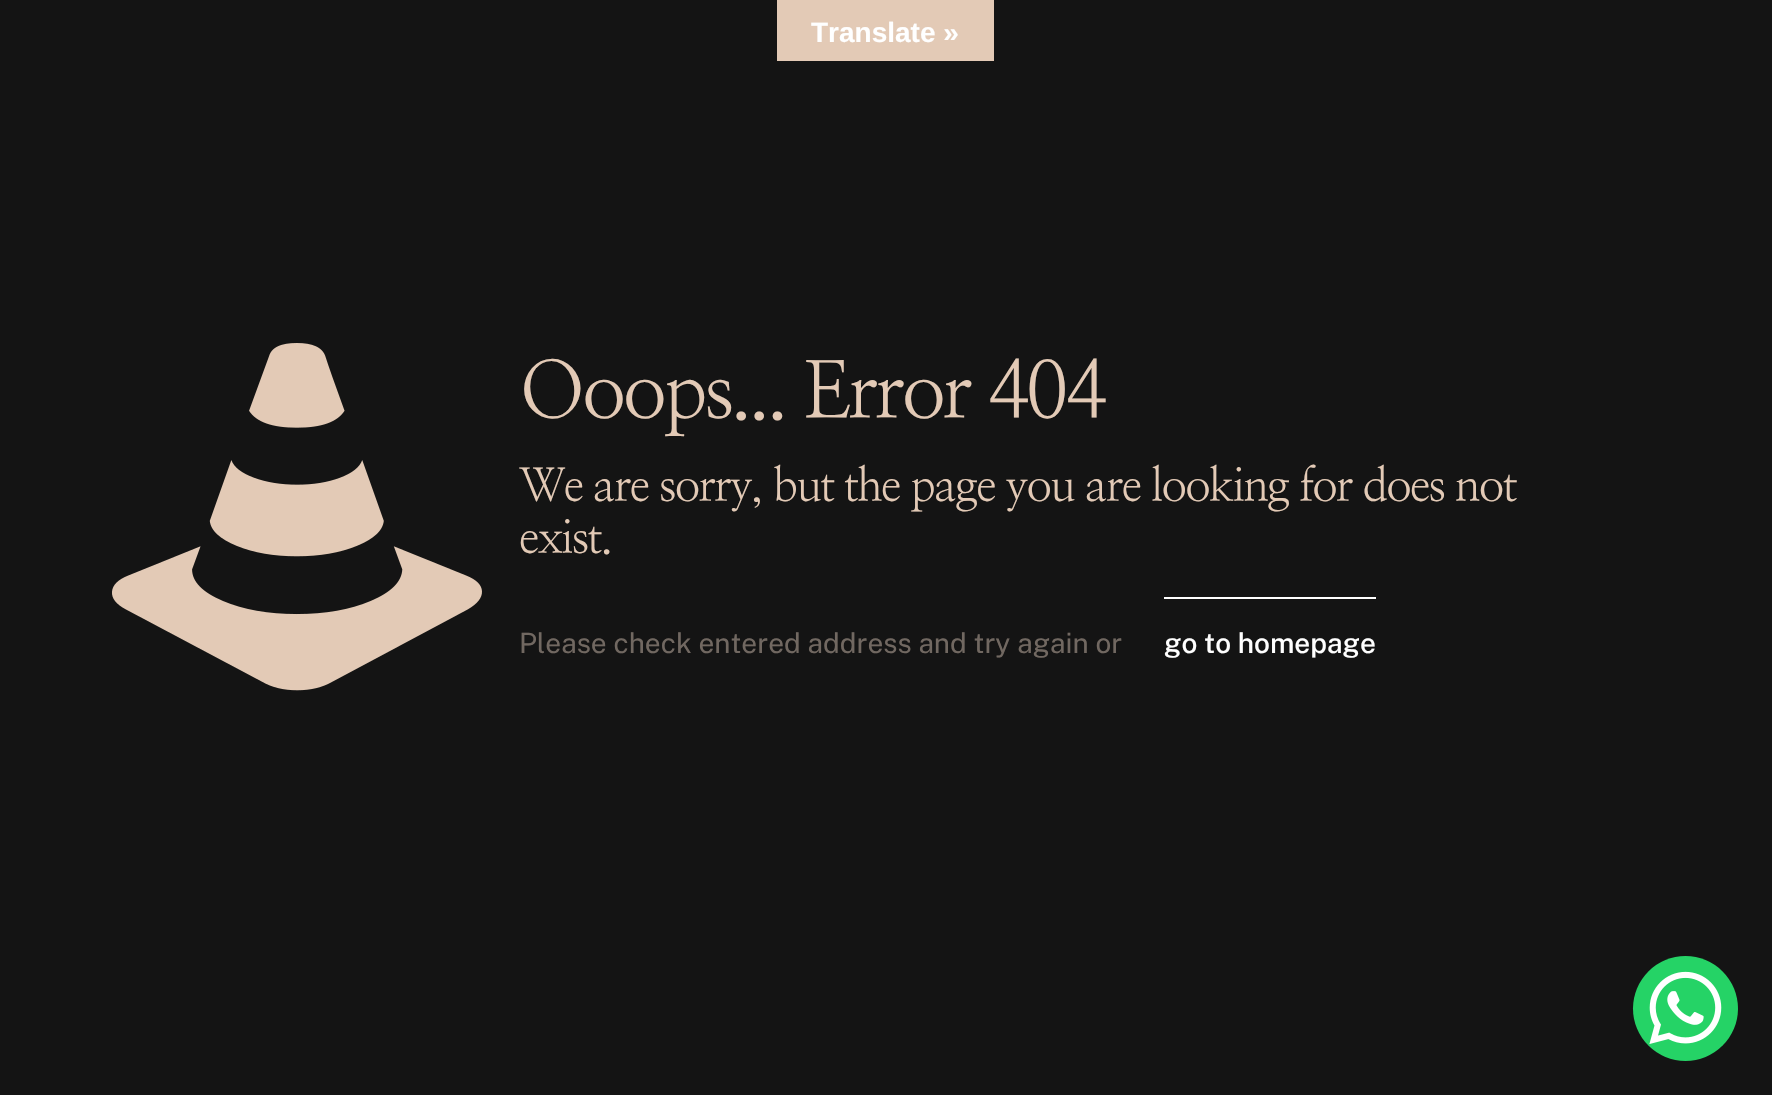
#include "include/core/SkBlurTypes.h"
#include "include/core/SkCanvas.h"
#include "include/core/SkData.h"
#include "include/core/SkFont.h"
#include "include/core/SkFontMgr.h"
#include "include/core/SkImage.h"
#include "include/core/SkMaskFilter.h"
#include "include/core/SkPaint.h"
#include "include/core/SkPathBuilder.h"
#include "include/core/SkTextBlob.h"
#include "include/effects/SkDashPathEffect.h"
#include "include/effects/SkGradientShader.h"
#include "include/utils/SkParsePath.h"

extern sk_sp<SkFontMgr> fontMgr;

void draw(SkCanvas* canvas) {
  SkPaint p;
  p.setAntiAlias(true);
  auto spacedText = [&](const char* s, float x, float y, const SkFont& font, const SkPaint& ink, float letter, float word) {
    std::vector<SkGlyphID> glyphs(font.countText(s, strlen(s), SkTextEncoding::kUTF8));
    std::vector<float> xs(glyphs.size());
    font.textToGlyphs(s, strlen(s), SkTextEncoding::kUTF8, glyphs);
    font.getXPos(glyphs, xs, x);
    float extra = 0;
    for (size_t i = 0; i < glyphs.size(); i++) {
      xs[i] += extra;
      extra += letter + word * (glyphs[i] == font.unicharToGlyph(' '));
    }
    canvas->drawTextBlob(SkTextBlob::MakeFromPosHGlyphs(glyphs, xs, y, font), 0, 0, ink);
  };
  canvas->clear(SkColorSetRGB(20, 20, 20));
  p.setColor(SkColorSetRGB(227, 202, 182));
  canvas->drawRect(SkRect::MakeLTRB(777, 0, 994, 61), p);
  canvas->drawImageRect(SkImages::DeferredFromEncodedData(SkData::MakeFromFileName("images/1.png")), SkRect::MakeLTRB(112, 343, 482, 691), SkSamplingOptions());
  p.setColor(SK_ColorWHITE);
  canvas->drawRect(SkRect::MakeLTRB(1164, 597, 1376, 599), p);
  p.setColor(SkColorSetRGB(37, 211, 102));
  canvas->drawCircle(1685.5f, 1008.5f, 52.5f, p);
  canvas->drawImageRect(SkImages::DeferredFromEncodedData(SkData::MakeFromFileName("images/2.png")), SkRect::MakeLTRB(1649, 971, 1722, 1044), SkSamplingOptions());
  SkFont font1(fontMgr->matchFamilyStyle("Liberation Sans", SkFontStyle::Bold()), 28);
  font1.setSubpixel(true);
  p.setColor(SK_ColorWHITE);
  canvas->drawString("Translate »", 811, 42, font1, p);
  SkFont font2(fontMgr->matchFamilyStyle("NanumMyeongjo", SkFontStyle::Normal()), 78.75f);
  font2.setSubpixel(true);
  p.setColor(SkColorSetRGB(227, 202, 182));
  spacedText("Ooops... Error 404", 519, 418, font2, p, -3.5f, 0);
  SkFont font3(fontMgr->matchFamilyStyle("NanumMyeongjo", SkFontStyle::Normal()), 45.5f);
  font3.setSubpixel(true);
  spacedText("We are sorry, but the page you are looking for does not", 519, 501, font3, p, -1.75f, 0);
  spacedText("exist.", 519, 553, font3, p, -1.75f, 0);
  SkFont font4(fontMgr->matchFamilyStyle("Public Sans", SkFontStyle(100, SkFontStyle::kNormal_Width, SkFontStyle::kUpright_Slant)), 28);
  font4.setSubpixel(true);
  p.setColor(SkColorSetRGB(113, 104, 97));
  canvas->drawString("Please check entered address and try again or", 519, 653, font4, p);
  SkFont font5(fontMgr->matchFamilyStyle("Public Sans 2", SkFontStyle(100, SkFontStyle::kNormal_Width, SkFontStyle::kUpright_Slant)), 28);
  font5.setSubpixel(true);
  p.setColor(SK_ColorWHITE);
  canvas->drawString("go to homepage", 1164, 653, font5, p);
}
